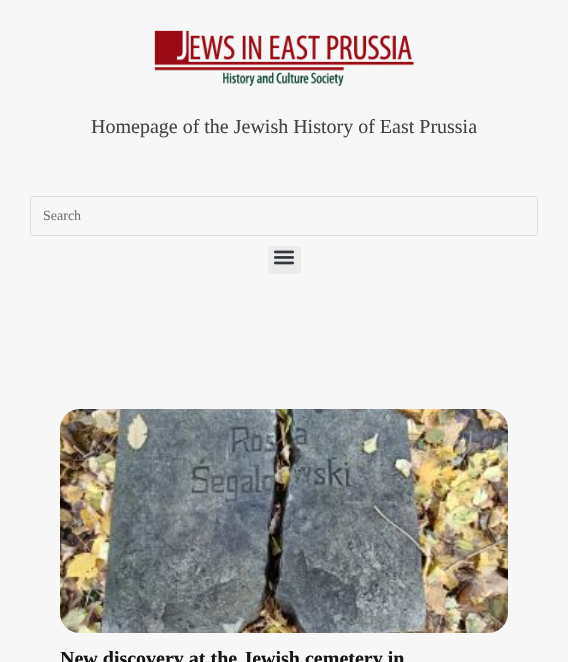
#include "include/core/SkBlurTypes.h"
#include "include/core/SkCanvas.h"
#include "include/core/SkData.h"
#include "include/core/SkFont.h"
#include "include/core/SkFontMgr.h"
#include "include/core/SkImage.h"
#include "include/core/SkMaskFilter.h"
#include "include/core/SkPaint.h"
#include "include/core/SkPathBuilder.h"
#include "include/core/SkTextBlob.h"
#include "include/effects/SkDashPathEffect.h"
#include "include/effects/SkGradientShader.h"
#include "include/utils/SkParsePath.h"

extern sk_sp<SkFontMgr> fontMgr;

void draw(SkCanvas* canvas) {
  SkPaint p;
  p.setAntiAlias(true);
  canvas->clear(SkColorSetRGB(247, 247, 247));
  canvas->drawImageRect(SkImages::DeferredFromEncodedData(SkData::MakeFromFileName("images/1.png")), SkRect::MakeLTRB(154, 30, 414, 86), SkSamplingOptions());
  p.setStyle(SkPaint::kStroke_Style);
  p.setStrokeWidth(1);
  p.setColor(SkColorSetRGB(221, 221, 221));
  canvas->drawRoundRect(SkRect::MakeLTRB(30.5f, 196.5f, 537.5f, 235.5f), 2.5f, 2.5f, p);
  p.setStyle(SkPaint::kFill_Style);
  p.setColor(SkColorSetRGB(235, 235, 235));
  canvas->drawRoundRect(SkRect::MakeLTRB(268, 246, 301, 274), 3, 3, p);
  canvas->drawImageRect(SkImages::DeferredFromEncodedData(SkData::MakeFromFileName("images/2.png")), SkRect::MakeLTRB(273, 250, 295, 265), SkSamplingOptions());
  canvas->drawImageRect(SkImages::DeferredFromEncodedData(SkData::MakeFromFileName("images/3.png")), SkRect::MakeLTRB(60, 409, 508, 633), SkSamplingOptions());
  SkFont font1(fontMgr->matchFamilyStyle("Liberation Serif", SkFontStyle::Normal()), 20);
  font1.setSubpixel(true);
  p.setColor(SkColorSetRGB(68, 68, 68));
  canvas->drawString("Homepage of the Jewish History of East Prussia", 91, 133, font1, p);
  SkFont font2(fontMgr->matchFamilyStyle("Liberation Serif", SkFontStyle::Normal()), 14);
  font2.setSubpixel(true);
  p.setColor(SkColorSetRGB(117, 117, 117));
  canvas->drawString("Search", 43, 220, font2, p);
  SkFont font3(fontMgr->matchFamilyStyle("Liberation Serif", SkFontStyle::Bold()), 20);
  font3.setSubpixel(true);
  p.setColor(SkColorSetRGB(22, 22, 22));
  canvas->drawString("New discovery at the Jewish cemetery in", 60, 665, font3, p);
}
